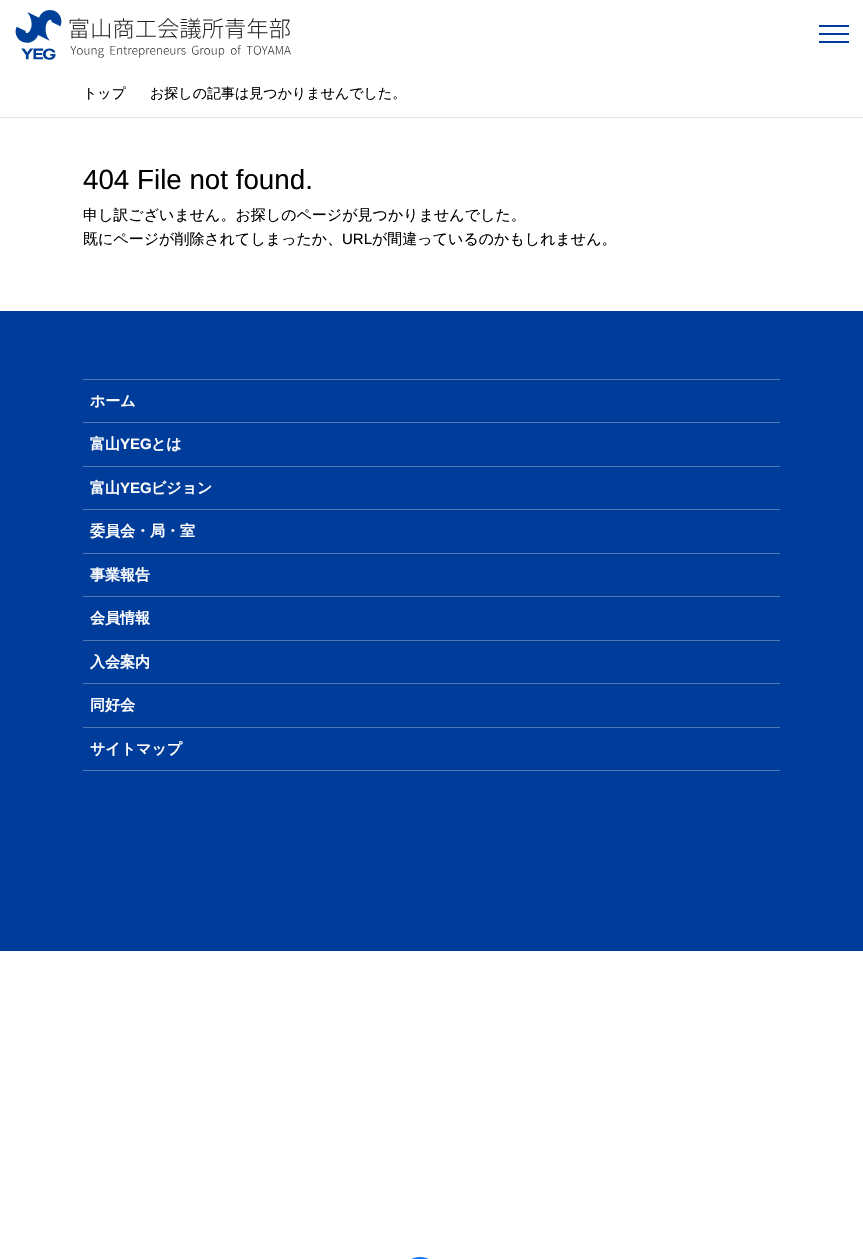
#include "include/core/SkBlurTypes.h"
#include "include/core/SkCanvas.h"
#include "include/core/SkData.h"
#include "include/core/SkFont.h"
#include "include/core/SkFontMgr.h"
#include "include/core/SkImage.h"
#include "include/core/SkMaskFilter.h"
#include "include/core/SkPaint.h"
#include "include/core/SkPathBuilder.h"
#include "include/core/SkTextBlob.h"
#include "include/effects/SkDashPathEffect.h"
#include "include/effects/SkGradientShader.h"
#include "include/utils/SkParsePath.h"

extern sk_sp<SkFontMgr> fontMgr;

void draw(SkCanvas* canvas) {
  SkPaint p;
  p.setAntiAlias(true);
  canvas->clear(SK_ColorWHITE);
  canvas->drawImageRect(SkImages::DeferredFromEncodedData(SkData::MakeFromFileName("images/1.png")), SkRect::MakeLTRB(15, 10, 291, 60), SkSamplingOptions());
  p.setColor(SkColorSetRGB(0, 61, 155));
  canvas->drawRect(SkRect::MakeLTRB(819, 25, 849, 27), p);
  canvas->drawRect(SkRect::MakeLTRB(819, 33, 849, 35), p);
  canvas->drawRect(SkRect::MakeLTRB(819, 41, 849, 43), p);
  p.setColor(SkColorSetRGB(227, 227, 227));
  canvas->drawRect(SkRect::MakeLTRB(0, 117, 863, 118), p);
  p.setColor(SkColorSetRGB(0, 61, 155));
  canvas->drawRect(SkRect::MakeLTRB(0, 311, 863, 951), p);
  p.setColor(SkColorSetRGB(79, 119, 181));
  canvas->drawRect(SkRect::MakeLTRB(83, 379, 780, 380), p);
  canvas->drawRect(SkRect::MakeLTRB(83, 422, 780, 423), p);
  canvas->drawRect(SkRect::MakeLTRB(83, 466, 780, 467), p);
  canvas->drawRect(SkRect::MakeLTRB(83, 509, 780, 510), p);
  canvas->drawRect(SkRect::MakeLTRB(83, 553, 780, 554), p);
  canvas->drawRect(SkRect::MakeLTRB(83, 596, 780, 597), p);
  canvas->drawRect(SkRect::MakeLTRB(83, 640, 780, 641), p);
  canvas->drawRect(SkRect::MakeLTRB(83, 683, 780, 684), p);
  canvas->drawRect(SkRect::MakeLTRB(83, 727, 780, 728), p);
  canvas->drawRect(SkRect::MakeLTRB(83, 770, 780, 771), p);
  canvas->drawImageRect(SkImages::DeferredFromEncodedData(SkData::MakeFromFileName("images/2.png")), SkRect::MakeLTRB(411, 1257, 429, 1259), SkSamplingOptions());
  SkFont font1(fontMgr->matchFamilyStyle("WenQuanYi Zen Hei", SkFontStyle(500, SkFontStyle::kNormal_Width, SkFontStyle::kUpright_Slant)), 14);
  font1.setSubpixel(true);
  p.setColor(SK_ColorBLACK);
  canvas->drawString("トップ", 83, 98, font1, p);
  canvas->drawString("お探しの記事は見つかりませんでした。", 150, 98, font1, p);
  SkFont font2(fontMgr->matchFamilyStyle("Liberation Sans", SkFontStyle::Normal()), 27.75f);
  font2.setSubpixel(true);
  canvas->drawString("404 File not found.", 83, 189, font2, p);
  SkFont font3(fontMgr->matchFamilyStyle("WenQuanYi Zen Hei", SkFontStyle(500, SkFontStyle::kNormal_Width, SkFontStyle::kUpright_Slant)), 15);
  font3.setSubpixel(true);
  canvas->drawString("申し訳ございません。お探しのページが見つかりませんでした。", 83, 220, font3, p);
  canvas->drawString("既にページが削除されてしまったか、", 83, 244, font3, p);
  SkFont font4(fontMgr->matchFamilyStyle("Liberation Sans", SkFontStyle::Normal()), 15);
  font4.setSubpixel(true);
  canvas->drawString("URL", 342, 244, font4, p);
  canvas->drawString("が間違っているのかもしれません。", 372, 244, font3, p);
  SkFont font5(fontMgr->matchFamilyStyle("WenQuanYi Zen Hei", SkFontStyle::Bold()), 15);
  font5.setSubpixel(true);
  p.setColor(SK_ColorWHITE);
  canvas->drawString("ホーム", 90, 406, font5, p);
  canvas->drawString("富山", 90, 449, font5, p);
  SkFont font6(fontMgr->matchFamilyStyle("Liberation Sans", SkFontStyle::Bold()), 15);
  font6.setSubpixel(true);
  canvas->drawString("YEG", 120, 449, font6, p);
  canvas->drawString("とは", 151, 449, font5, p);
  canvas->drawString("富山", 90, 493, font5, p);
  canvas->drawString("YEG", 120, 493, font6, p);
  canvas->drawString("ビジョン", 151, 493, font5, p);
  canvas->drawString("委員会・局・室", 90, 536, font5, p);
  canvas->drawString("事業報告", 90, 580, font5, p);
  canvas->drawString("会員情報", 90, 623, font5, p);
  canvas->drawString("入会案内", 90, 667, font5, p);
  canvas->drawString("同好会", 90, 710, font5, p);
  canvas->drawString("サイトマップ", 90, 754, font5, p);
}
